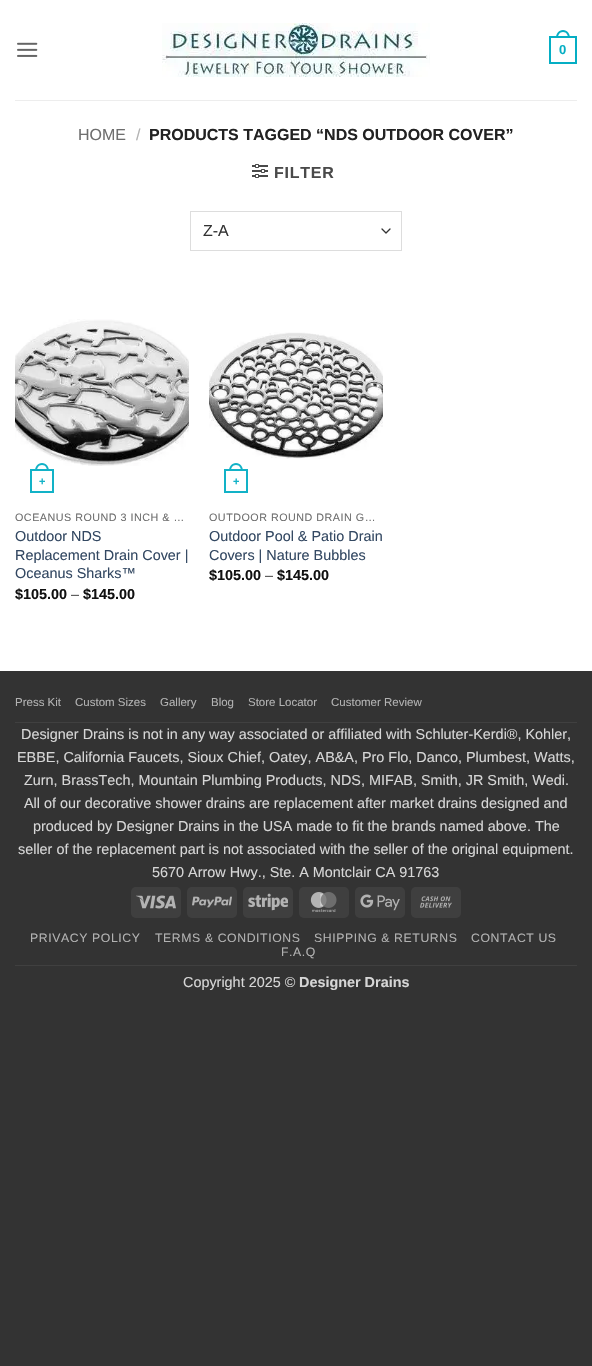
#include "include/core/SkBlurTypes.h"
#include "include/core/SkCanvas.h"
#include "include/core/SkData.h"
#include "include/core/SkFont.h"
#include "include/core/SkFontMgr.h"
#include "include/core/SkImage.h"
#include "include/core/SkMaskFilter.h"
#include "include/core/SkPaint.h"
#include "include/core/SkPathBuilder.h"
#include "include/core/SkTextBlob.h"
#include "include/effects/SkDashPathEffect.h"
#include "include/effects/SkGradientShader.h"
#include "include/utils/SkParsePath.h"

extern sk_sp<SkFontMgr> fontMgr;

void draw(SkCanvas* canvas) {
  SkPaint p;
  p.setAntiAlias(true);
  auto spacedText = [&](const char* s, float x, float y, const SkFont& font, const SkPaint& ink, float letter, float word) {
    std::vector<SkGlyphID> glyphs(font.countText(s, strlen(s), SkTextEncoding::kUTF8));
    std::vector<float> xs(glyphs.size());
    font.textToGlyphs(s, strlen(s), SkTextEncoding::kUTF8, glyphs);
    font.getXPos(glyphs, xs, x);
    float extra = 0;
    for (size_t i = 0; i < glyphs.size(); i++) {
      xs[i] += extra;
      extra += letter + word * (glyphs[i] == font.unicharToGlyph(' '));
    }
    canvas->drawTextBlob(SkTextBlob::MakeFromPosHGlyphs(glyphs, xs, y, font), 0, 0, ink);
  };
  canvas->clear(SkColorSetRGB(51, 51, 51));
  p.setColor(SK_ColorWHITE);
  canvas->drawRect(SkRect::MakeLTRB(0, 0, 592, 671), p);
  canvas->drawImageRect(SkImages::DeferredFromEncodedData(SkData::MakeFromFileName("images/1.png")), SkRect::MakeLTRB(17, 42, 38, 57), SkSamplingOptions());
  canvas->drawImageRect(SkImages::DeferredFromEncodedData(SkData::MakeFromFileName("images/2.png")), SkRect::MakeLTRB(162, 23, 430, 77), SkSamplingOptions());
  p.setStyle(SkPaint::kStroke_Style);
  p.setStrokeWidth(2);
  p.setColor(SkColorSetRGB(5, 174, 196));
  canvas->drawRect(SkRect::MakeLTRB(550, 37, 576, 63), p);
  p.setStyle(SkPaint::kFill_Style);
  canvas->drawPath(SkPathBuilder(SkPathFillType::kEvenOdd).moveTo(563, 30).cubicTo(567.5f, 30, 570, 34, 570, 38).lineTo(556, 38).cubicTo(556, 34, 558.5f, 30, 563, 30).close().moveTo(563, 32).cubicTo(566.5f, 32, 568, 35, 568, 38).lineTo(558, 38).cubicTo(558, 35, 559.5f, 32, 563, 32).close().detach(), p);
  p.setColor(SkColorSetRGB(237, 237, 237));
  canvas->drawRect(SkRect::MakeLTRB(15, 100, 577, 101), p);
  canvas->drawImageRect(SkImages::DeferredFromEncodedData(SkData::MakeFromFileName("images/3.png")), SkRect::MakeLTRB(252, 164, 268, 178), SkSamplingOptions());
  p.setStyle(SkPaint::kStroke_Style);
  p.setStrokeWidth(1.3f);
  p.setStrokeCap(SkPaint::kRound_Cap);
  p.setStrokeJoin(SkPaint::kRound_Join);
  p.setColor(SkColorSetRGB(51, 51, 51));
  canvas->drawPath(SkPathBuilder().moveTo(382, 229).lineTo(386, 233).lineTo(390, 229).detach(), p);
  p.setStrokeWidth(1);
  p.setStrokeCap(SkPaint::kButt_Cap);
  p.setStrokeJoin(SkPaint::kMiter_Join);
  p.setColor(SkColorSetRGB(221, 221, 221));
  canvas->drawRect(SkRect::MakeLTRB(190.5f, 211.5f, 401.5f, 250.5f), p);
  canvas->drawImageRect(SkImages::DeferredFromEncodedData(SkData::MakeFromFileName("images/4.png")), SkRect::MakeLTRB(15, 319, 189, 466), SkSamplingOptions());
  p.setStrokeWidth(2);
  p.setColor(SkColorSetRGB(18, 178, 199));
  canvas->drawRect(SkRect::MakeLTRB(31, 470, 53, 492), p);
  p.setStyle(SkPaint::kFill_Style);
  canvas->drawPath(SkPathBuilder(SkPathFillType::kEvenOdd).moveTo(42, 463).cubicTo(46.5f, 463, 49, 467, 49, 471).lineTo(35, 471).cubicTo(35, 467, 37.5f, 463, 42, 463).close().moveTo(42, 465).cubicTo(45.5f, 465, 47, 468, 47, 471).lineTo(37, 471).cubicTo(37, 468, 38.5f, 465, 42, 465).close().detach(), p);
  canvas->drawImageRect(SkImages::DeferredFromEncodedData(SkData::MakeFromFileName("images/5.png")), SkRect::MakeLTRB(209, 332, 383, 459), SkSamplingOptions());
  p.setStyle(SkPaint::kStroke_Style);
  canvas->drawRect(SkRect::MakeLTRB(225, 470, 247, 492), p);
  p.setStyle(SkPaint::kFill_Style);
  canvas->drawPath(SkPathBuilder(SkPathFillType::kEvenOdd).moveTo(236, 463).cubicTo(240.5f, 463, 243, 467, 243, 471).lineTo(229, 471).cubicTo(229, 467, 231.5f, 463, 236, 463).close().moveTo(236, 465).cubicTo(239.5f, 465, 241, 468, 241, 471).lineTo(231, 471).cubicTo(231, 468, 232.5f, 465, 236, 465).close().detach(), p);
  p.setColor(SkColorSetRGB(64, 64, 64));
  canvas->drawRect(SkRect::MakeLTRB(15, 722, 577, 723), p);
  p.setColor(SkColorSetRGB(63, 63, 63));
  canvas->drawRoundRect(SkRect::MakeLTRB(131, 887, 181, 918), 5, 5, p);
  canvas->drawImageRect(SkImages::DeferredFromEncodedData(SkData::MakeFromFileName("images/6.png")), SkRect::MakeLTRB(136, 895, 176, 909), SkSamplingOptions());
  canvas->drawRoundRect(SkRect::MakeLTRB(187, 887, 237, 918), 5, 5, p);
  canvas->drawImageRect(SkImages::DeferredFromEncodedData(SkData::MakeFromFileName("images/7.png")), SkRect::MakeLTRB(192, 896, 232, 908), SkSamplingOptions());
  canvas->drawRoundRect(SkRect::MakeLTRB(243, 887, 293, 918), 5, 5, p);
  canvas->drawImageRect(SkImages::DeferredFromEncodedData(SkData::MakeFromFileName("images/8.png")), SkRect::MakeLTRB(248, 893, 288, 911), SkSamplingOptions());
  canvas->drawRoundRect(SkRect::MakeLTRB(299, 887, 349, 918), 5, 5, p);
  canvas->drawImageRect(SkImages::DeferredFromEncodedData(SkData::MakeFromFileName("images/9.png")), SkRect::MakeLTRB(310, 892, 337, 912), SkSamplingOptions());
  canvas->drawRoundRect(SkRect::MakeLTRB(355, 887, 405, 918), 5, 5, p);
  canvas->drawImageRect(SkImages::DeferredFromEncodedData(SkData::MakeFromFileName("images/10.png")), SkRect::MakeLTRB(360, 894, 400, 911), SkSamplingOptions());
  canvas->drawRoundRect(SkRect::MakeLTRB(411, 887, 461, 918), 5, 5, p);
  canvas->drawImageRect(SkImages::DeferredFromEncodedData(SkData::MakeFromFileName("images/11.png")), SkRect::MakeLTRB(420, 896, 452, 908), SkSamplingOptions());
  p.setColor(SkColorSetRGB(64, 64, 64));
  canvas->drawRect(SkRect::MakeLTRB(15, 965, 577, 966), p);
  SkFont font1(fontMgr->matchFamilyStyle("Liberation Sans", SkFontStyle::Bold()), 13);
  font1.setSubpixel(true);
  p.setColor(SkColorSetRGB(5, 174, 196));
  canvas->drawString("0", 559, 54, font1, p);
  SkFont font2(fontMgr->matchFamilyStyle("Liberation Sans", SkFontStyle::Normal()), 16);
  font2.setSubpixel(true);
  p.setColor(SkColorSetRGB(110, 110, 110));
  canvas->drawString("HOME", 78, 140, font2, p);
  p.setColor(SkColorSetRGB(178, 178, 178));
  canvas->drawString("/", 136, 140, font2, p);
  SkFont font3(fontMgr->matchFamilyStyle("Liberation Sans", SkFontStyle::Bold()), 16);
  font3.setSubpixel(true);
  p.setColor(SkColorSetRGB(34, 34, 34));
  canvas->drawString("PRODUCTS TAGGED “NDS OUTDOOR COVER”", 149, 140, font3, p);
  p.setColor(SkColorSetRGB(74, 74, 74));
  spacedText("FILTER", 274, 178, font3, p, 0.75f, 0);
  p.setColor(SkColorSetRGB(51, 51, 51));
  canvas->drawString("Z-A", 203, 236, font2, p);
  SkFont font4(fontMgr->matchFamilyStyle("Liberation Sans", SkFontStyle::Bold()), 11);
  font4.setSubpixel(true);
  p.setColor(SkColorSetRGB(18, 178, 199));
  canvas->drawString("+", 39, 485, font4, p);
  SkFont font5(fontMgr->matchFamilyStyle("Liberation Sans", SkFontStyle::Normal()), 10.75f);
  font5.setSubpixel(true);
  p.setColor(SkColorSetRGB(110, 110, 110));
  spacedText("OCEANUS ROUND 3 INCH & …", 15, 521, font5, p, 0.5f, 0);
  SkFont font6(fontMgr->matchFamilyStyle("Liberation Sans", SkFontStyle::Normal()), 14.4f);
  font6.setSubpixel(true);
  p.setColor(SkColorSetRGB(51, 72, 98));
  canvas->drawString("Outdoor NDS", 15, 541, font6, p);
  canvas->drawString("Replacement Drain Cover |", 15, 560, font6, p);
  canvas->drawString("Oceanus Sharks™", 15, 578, font6, p);
  SkFont font7(fontMgr->matchFamilyStyle("Liberation Sans", SkFontStyle::Bold()), 14.4f);
  font7.setSubpixel(true);
  p.setColor(SkColorSetRGB(17, 17, 17));
  canvas->drawString("$105.00", 15, 599, font7, p);
  p.setColor(SkColorSetRGB(74, 74, 74));
  canvas->drawString("–", 71, 599, font6, p);
  p.setColor(SkColorSetRGB(17, 17, 17));
  canvas->drawString("$145.00", 83, 599, font7, p);
  p.setColor(SkColorSetRGB(18, 178, 199));
  canvas->drawString("+", 233, 485, font4, p);
  p.setColor(SkColorSetRGB(110, 110, 110));
  spacedText("OUTDOOR ROUND DRAIN G…", 209, 521, font5, p, 0.5f, 0);
  p.setColor(SkColorSetRGB(51, 72, 98));
  canvas->drawString("Outdoor Pool & Patio Drain", 209, 541, font6, p);
  canvas->drawString("Covers | Nature Bubbles", 209, 560, font6, p);
  p.setColor(SkColorSetRGB(17, 17, 17));
  canvas->drawString("$105.00", 209, 580, font7, p);
  p.setColor(SkColorSetRGB(74, 74, 74));
  canvas->drawString("–", 265, 580, font6, p);
  p.setColor(SkColorSetRGB(17, 17, 17));
  canvas->drawString("$145.00", 277, 580, font7, p);
  SkFont font8(fontMgr->matchFamilyStyle("Liberation Sans", SkFontStyle::Normal()), 11.5f);
  font8.setSubpixel(true);
  p.setColor(SkColorSetRGB(178, 178, 178));
  canvas->drawString("Press Kit", 15, 706, font8, p);
  canvas->drawString("Custom Sizes", 75, 706, font8, p);
  canvas->drawString("Gallery", 160, 706, font8, p);
  canvas->drawString("Blog", 211, 706, font8, p);
  canvas->drawString("Store Locator", 248, 706, font8, p);
  canvas->drawString("Customer Review", 331, 706, font8, p);
  p.setColor(SkColorSetRGB(214, 214, 214));
  canvas->drawString("Designer Drains is not in any way associated or affiliated with Schluter-Kerdi®, Kohler,", 21, 739, font6, p);
  canvas->drawString("EBBE, California Faucets, Sioux Chief, Oatey, AB&A, Pro Flo, Danco, Plumbest, Watts,", 17, 762, font6, p);
  canvas->drawString("Zurn, BrassTech, Mountain Plumbing Products, NDS, MIFAB, Smith, JR Smith, Wedi.", 24, 785, font6, p);
  canvas->drawString("All of our decorative shower drains are replacement after market drains designed and", 24, 808, font6, p);
  canvas->drawString("produced by Designer Drains in the USA made to fit the brands named above. The", 33, 831, font6, p);
  canvas->drawString("seller of the replacement part is not associated with the seller of the original equipment.", 18, 854, font6, p);
  canvas->drawString("5670 Arrow Hwy., Ste. A Montclair CA 91763", 152, 877, font6, p);
  SkFont font9(fontMgr->matchFamilyStyle("Liberation Sans", SkFontStyle::Normal()), 12.25f);
  font9.setSubpixel(true);
  p.setColor(SkColorSetRGB(178, 178, 178));
  spacedText("PRIVACY POLICY", 30, 942, font9, p, 0.6f, 0);
  spacedText("TERMS & CONDITIONS", 155, 942, font9, p, 0.6f, 0);
  spacedText("SHIPPING & RETURNS", 314, 942, font9, p, 0.6f, 0);
  spacedText("CONTACT US", 471, 942, font9, p, 0.6f, 0);
  spacedText("F.A.Q", 281, 956, font9, p, 0.6f, 0);
  p.setColor(SkColorSetRGB(214, 214, 214));
  canvas->drawString("Copyright 2025 ©", 183, 987, font6, p);
  canvas->drawString("Designer Drains", 299, 987, font7, p);
}
